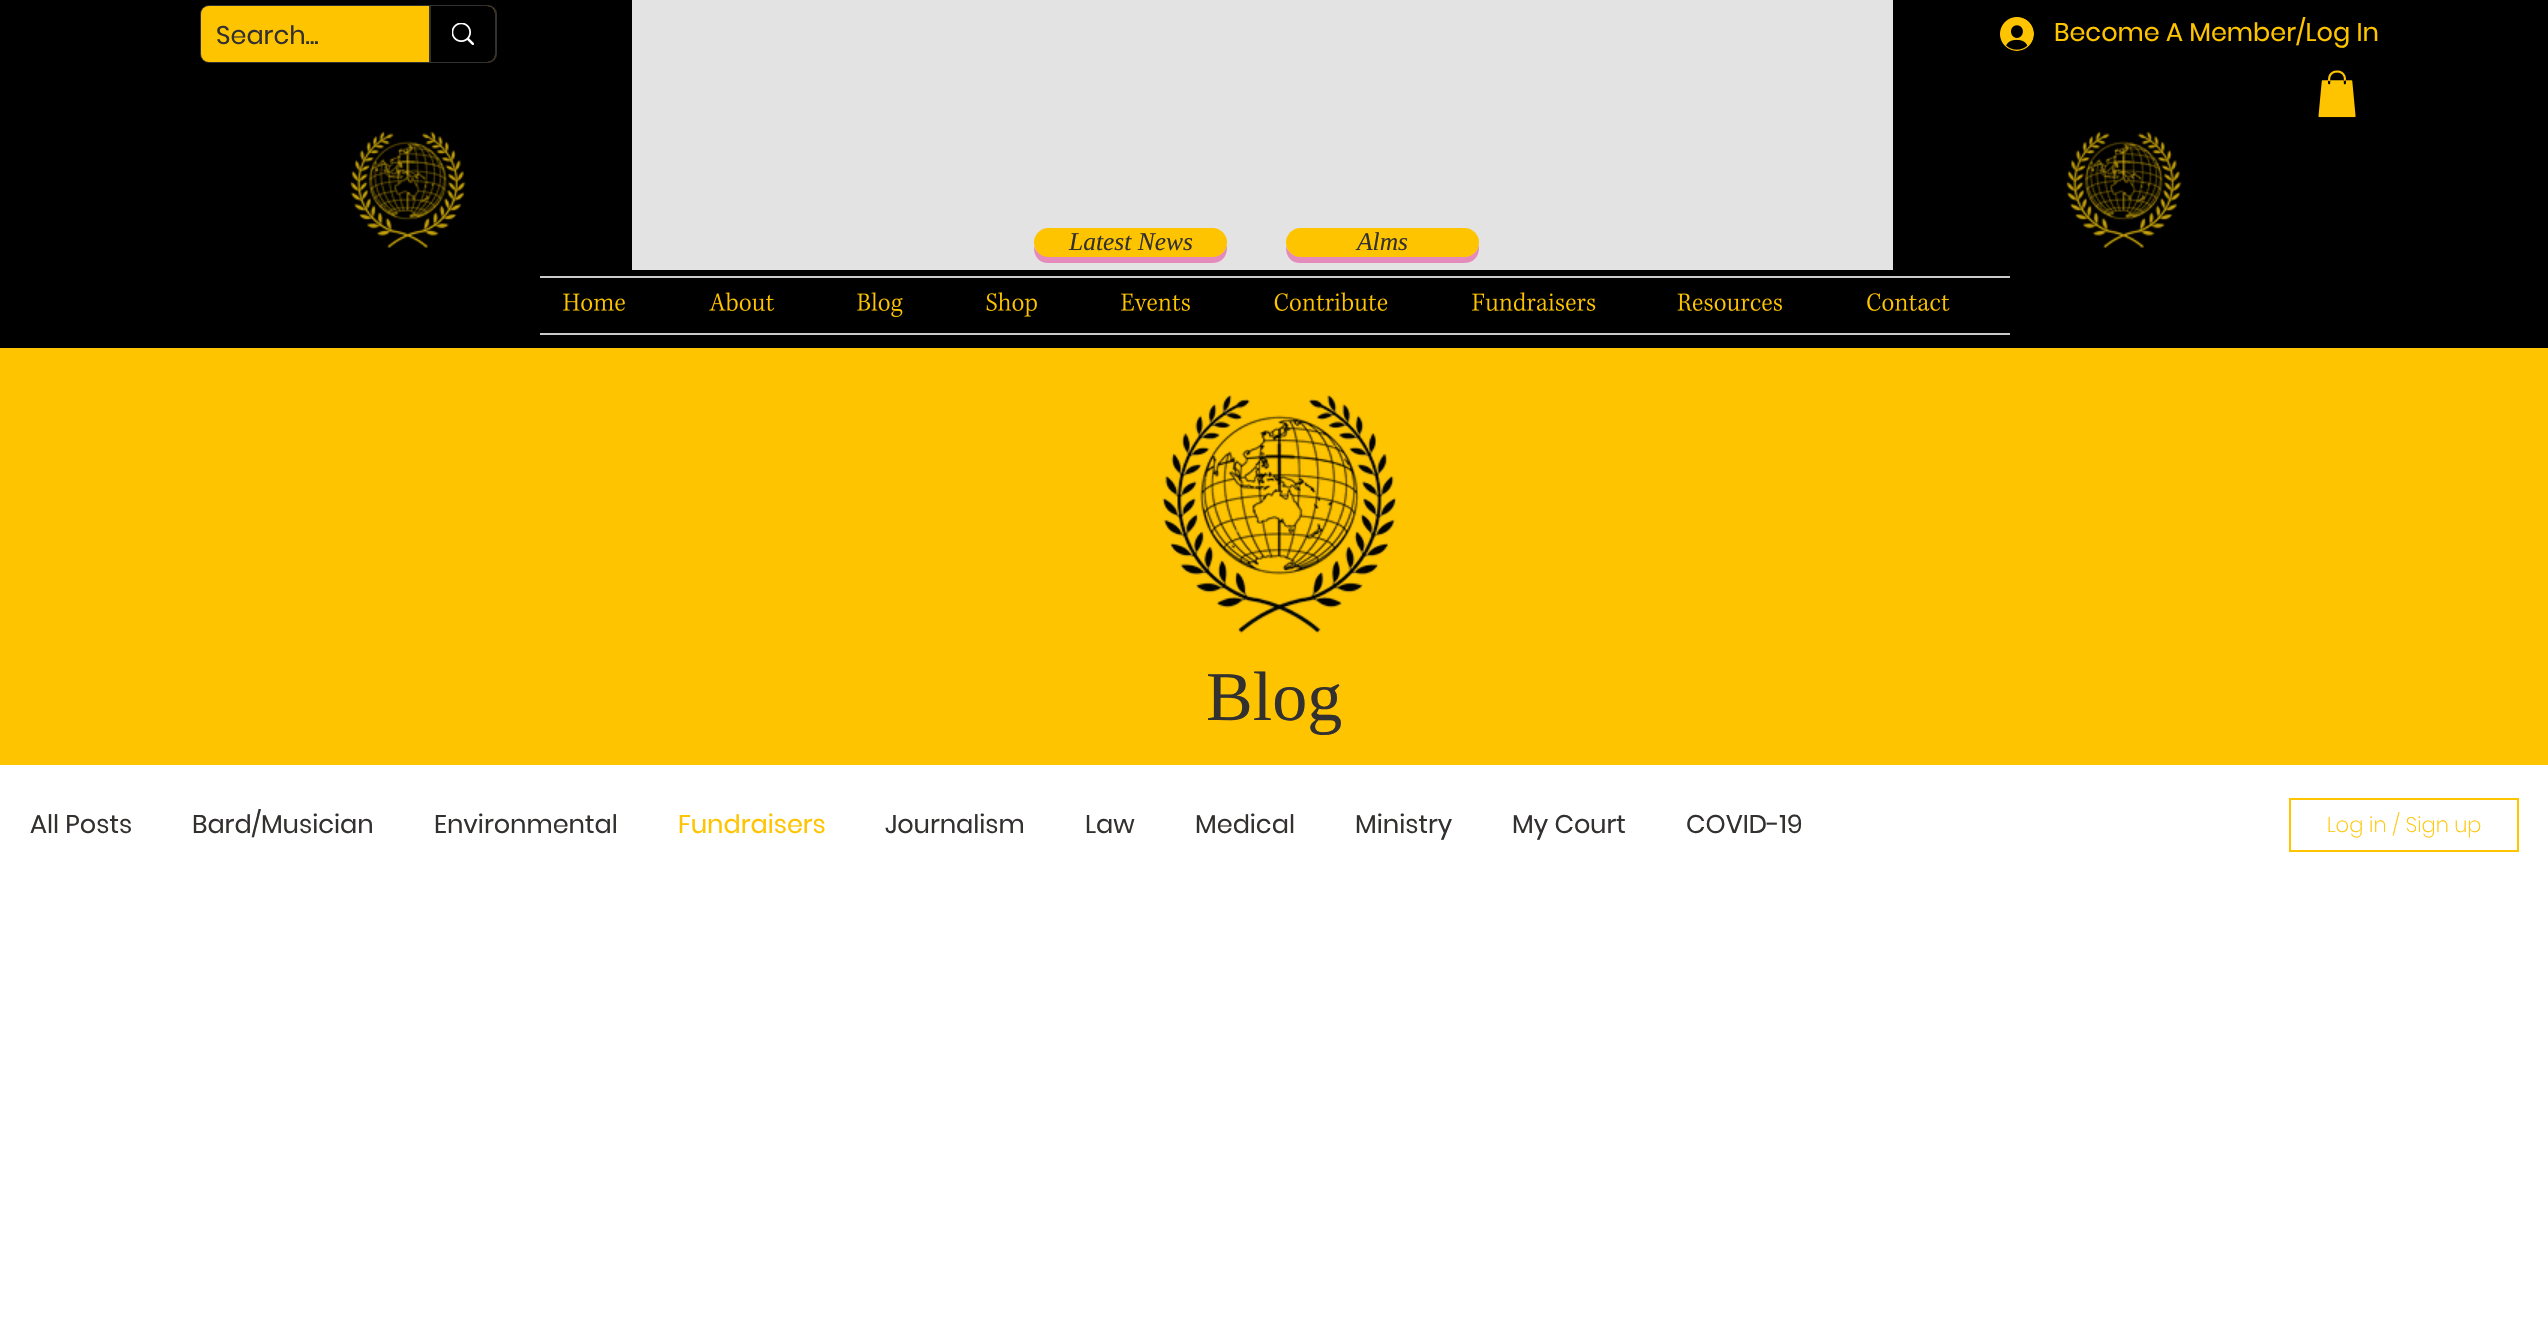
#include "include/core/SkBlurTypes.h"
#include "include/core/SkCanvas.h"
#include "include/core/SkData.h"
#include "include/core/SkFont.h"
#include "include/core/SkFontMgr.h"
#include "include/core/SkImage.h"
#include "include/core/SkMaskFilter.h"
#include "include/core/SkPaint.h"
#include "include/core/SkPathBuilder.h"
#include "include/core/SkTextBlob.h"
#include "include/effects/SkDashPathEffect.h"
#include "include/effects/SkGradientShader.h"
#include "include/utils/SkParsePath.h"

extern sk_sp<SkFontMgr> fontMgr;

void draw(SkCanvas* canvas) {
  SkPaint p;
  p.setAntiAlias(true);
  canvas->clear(SkColorSetRGB(255, 196, 0));
  p.setColor(SK_ColorBLACK);
  canvas->drawRect(SkRect::MakeLTRB(0, 0, 2548, 348), p);
  p.setStyle(SkPaint::kStroke_Style);
  p.setStrokeWidth(2);
  p.setColor(SkColorSetRGB(51, 49, 48));
  canvas->drawRoundRect(SkRect::MakeLTRB(201, 6, 496, 62), 8, 8, p);
  p.setStyle(SkPaint::kFill_Style);
  p.setColor(SkColorSetRGB(255, 196, 0));
  canvas->drawRoundRect(SkRect::MakeLTRB(201, 6, 495, 62), 8, 8, p);
  p.setColor(SK_ColorBLACK);
  canvas->drawPath(SkPathBuilder().moveTo(429, 6).lineTo(487, 6).cubicTo(491.5f, 6, 495, 9.5f, 495, 14).lineTo(495, 54).cubicTo(495, 58.5f, 491.5f, 62, 487, 62).lineTo(429, 62).close().detach(), p);
  p.setColor(SkColorSetRGB(51, 49, 48));
  canvas->drawRect(SkRect::MakeLTRB(429, 6, 431, 62), p);
  canvas->drawImageRect(SkImages::DeferredFromEncodedData(SkData::MakeFromFileName("images/1.png")), SkRect::MakeLTRB(452, 23, 474, 45), SkSamplingOptions());
  canvas->drawImageRect(SkImages::DeferredFromEncodedData(SkData::MakeFromFileName("images/2.png")), SkRect::MakeLTRB(350, 131, 466, 248), SkSamplingOptions());
  canvas->drawImageRect(SkImages::DeferredFromEncodedData(SkData::MakeFromFileName("images/3.png")), SkRect::MakeLTRB(2000, 17, 2034, 51), SkSamplingOptions());
  canvas->drawImageRect(SkImages::DeferredFromEncodedData(SkData::MakeFromFileName("images/4.png")), SkRect::MakeLTRB(2318, 70, 2356, 118), SkSamplingOptions());
  canvas->drawImageRect(SkImages::DeferredFromEncodedData(SkData::MakeFromFileName("images/5.png")), SkRect::MakeLTRB(2066, 131, 2182, 248), SkSamplingOptions());
  p.setColor(SkColorSetRGB(227, 227, 227));
  canvas->drawRect(SkRect::MakeLTRB(632, 0, 1893, 270), p);
  p.setColor(SkColorSetRGB(228, 139, 187));
  canvas->drawPath(SkPathBuilder().moveTo(1034, 246).lineTo(1034, 248).cubicTo(1034, 257, 1040, 263, 1048, 263).lineTo(1212, 263).cubicTo(1221, 263, 1227, 257, 1227, 248).lineTo(1227, 245).cubicTo(1225, 252, 1220, 256, 1213, 256).lineTo(1048, 256).cubicTo(1041, 256, 1036, 252, 1034, 246).close().detach(), p);
  p.setColor(SkColorSetRGB(255, 196, 0));
  canvas->drawRoundRect(SkRect::MakeLTRB(1034, 228, 1227, 257), 14.5f, 14.5f, p);
  p.setColor(SkColorSetRGB(228, 139, 187));
  canvas->drawPath(SkPathBuilder().moveTo(1286, 246).lineTo(1286, 248).cubicTo(1286, 257, 1292, 263, 1300, 263).lineTo(1464, 263).cubicTo(1473, 263, 1479, 257, 1479, 248).lineTo(1479, 245).cubicTo(1477, 252, 1472, 256, 1465, 256).lineTo(1300, 256).cubicTo(1293, 256, 1288, 252, 1286, 246).close().detach(), p);
  p.setColor(SkColorSetRGB(255, 196, 0));
  canvas->drawRoundRect(SkRect::MakeLTRB(1286, 228, 1479, 257), 14.5f, 14.5f, p);
  p.setColor(SkColorSetRGB(202, 202, 202));
  canvas->drawRect(SkRect::MakeLTRB(540, 276, 2010, 278), p);
  canvas->drawRect(SkRect::MakeLTRB(540, 333, 2010, 335), p);
  canvas->drawImageRect(SkImages::DeferredFromEncodedData(SkData::MakeFromFileName("images/6.png")), SkRect::MakeLTRB(563, 293, 625, 311), SkSamplingOptions());
  canvas->drawImageRect(SkImages::DeferredFromEncodedData(SkData::MakeFromFileName("images/7.png")), SkRect::MakeLTRB(709, 292, 774, 311), SkSamplingOptions());
  canvas->drawImageRect(SkImages::DeferredFromEncodedData(SkData::MakeFromFileName("images/8.png")), SkRect::MakeLTRB(857, 292, 903, 317), SkSamplingOptions());
  canvas->drawImageRect(SkImages::DeferredFromEncodedData(SkData::MakeFromFileName("images/9.png")), SkRect::MakeLTRB(986, 292, 1037, 317), SkSamplingOptions());
  canvas->drawImageRect(SkImages::DeferredFromEncodedData(SkData::MakeFromFileName("images/10.png")), SkRect::MakeLTRB(1121, 293, 1190, 311), SkSamplingOptions());
  canvas->drawImageRect(SkImages::DeferredFromEncodedData(SkData::MakeFromFileName("images/11.png")), SkRect::MakeLTRB(1274, 292, 1388, 311), SkSamplingOptions());
  canvas->drawImageRect(SkImages::DeferredFromEncodedData(SkData::MakeFromFileName("images/12.png")), SkRect::MakeLTRB(1472, 292, 1596, 311), SkSamplingOptions());
  canvas->drawImageRect(SkImages::DeferredFromEncodedData(SkData::MakeFromFileName("images/13.png")), SkRect::MakeLTRB(1677, 293, 1782, 311), SkSamplingOptions());
  canvas->drawImageRect(SkImages::DeferredFromEncodedData(SkData::MakeFromFileName("images/14.png")), SkRect::MakeLTRB(1867, 293, 1950, 311), SkSamplingOptions());
  canvas->drawImageRect(SkImages::DeferredFromEncodedData(SkData::MakeFromFileName("images/15.png")), SkRect::MakeLTRB(1162, 394, 1397, 634), SkSamplingOptions());
  p.setColor(SK_ColorWHITE);
  canvas->drawRect(SkRect::MakeLTRB(0, 765, 2548, 1327), p);
  p.setStyle(SkPaint::kStroke_Style);
  p.setColor(SkColorSetRGB(255, 196, 0));
  canvas->drawRect(SkRect::MakeLTRB(2290, 799, 2518, 851), p);
  SkFont font1(fontMgr->matchFamilyStyle("Poppins", SkFontStyle::Normal()), 25.5f);
  font1.setSubpixel(true);
  p.setStyle(SkPaint::kFill_Style);
  p.setColor(SkColorSetRGB(51, 49, 48));
  canvas->drawString("Search...", 216, 44, font1, p);
  p.setColor(SkColorSetRGB(255, 196, 0));
  canvas->drawString("Become A Member/Log In", 2054, 41, font1, p);
  SkFont font2(fontMgr->matchFamilyStyle("Liberation Serif", SkFontStyle::Italic()), 25.5f);
  font2.setSubpixel(true);
  p.setColor(SkColorSetRGB(51, 49, 48));
  canvas->drawString("Latest News", 1069, 250, font2, p);
  canvas->drawString("Alms", 1357, 250, font2, p);
  SkFont font3(fontMgr->matchFamilyStyle("Liberation Serif", SkFontStyle::Normal()), 70);
  font3.setSubpixel(true);
  canvas->drawString("Blog", 1206, 720, font3, p);
  canvas->drawString("All Posts", 30, 833, font1, p);
  canvas->drawString("Bard/Musician", 192, 833, font1, p);
  canvas->drawString("Environmental", 434, 833, font1, p);
  p.setColor(SkColorSetRGB(255, 196, 0));
  canvas->drawString("Fundraisers", 678, 833, font1, p);
  p.setColor(SkColorSetRGB(51, 49, 48));
  canvas->drawString("Journalism", 885, 833, font1, p);
  canvas->drawString("Law", 1085, 833, font1, p);
  canvas->drawString("Medical", 1195, 833, font1, p);
  canvas->drawString("Ministry", 1355, 833, font1, p);
  canvas->drawString("My Court", 1512, 833, font1, p);
  canvas->drawString("COVID-19", 1686, 833, font1, p);
  SkFont font4(fontMgr->matchFamilyStyle("Poppins", SkFontStyle(200, SkFontStyle::kNormal_Width, SkFontStyle::kUpright_Slant)), 21);
  font4.setSubpixel(true);
  p.setColor(SkColorSetRGB(255, 196, 0));
  canvas->drawString("Log in / Sign up", 2327, 832, font4, p);
}
